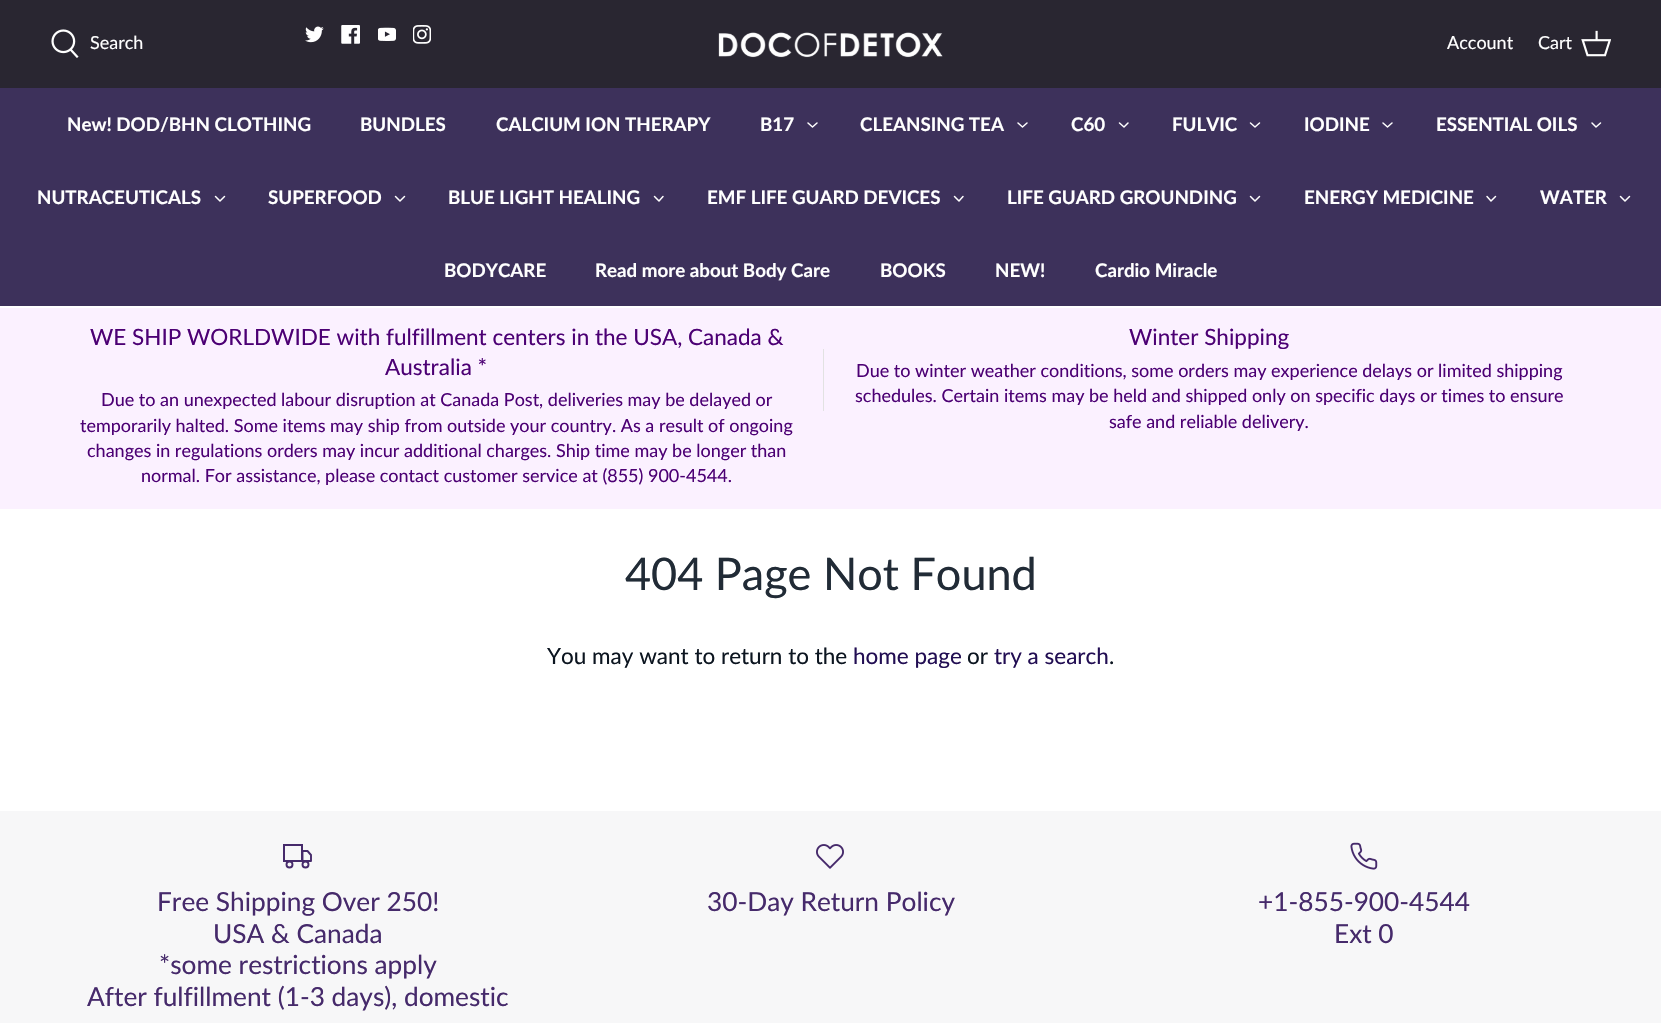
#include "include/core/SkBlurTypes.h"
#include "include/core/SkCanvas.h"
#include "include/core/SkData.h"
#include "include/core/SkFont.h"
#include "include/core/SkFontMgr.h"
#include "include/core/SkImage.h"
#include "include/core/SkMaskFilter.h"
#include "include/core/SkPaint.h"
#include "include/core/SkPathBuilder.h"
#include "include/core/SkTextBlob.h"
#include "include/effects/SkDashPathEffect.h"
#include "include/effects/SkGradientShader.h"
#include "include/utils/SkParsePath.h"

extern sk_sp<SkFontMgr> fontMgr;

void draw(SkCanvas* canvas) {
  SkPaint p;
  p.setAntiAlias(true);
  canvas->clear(SK_ColorWHITE);
  p.setColor(SkColorSetRGB(41, 38, 49));
  canvas->drawRect(SkRect::MakeLTRB(0, 0, 1661, 88), p);
  canvas->drawImageRect(SkImages::DeferredFromEncodedData(SkData::MakeFromFileName("images/1.png")), SkRect::MakeLTRB(51, 29, 79, 58), SkSamplingOptions());
  canvas->drawImageRect(SkImages::DeferredFromEncodedData(SkData::MakeFromFileName("images/2.png")), SkRect::MakeLTRB(305, 26, 324, 43), SkSamplingOptions());
  canvas->drawImageRect(SkImages::DeferredFromEncodedData(SkData::MakeFromFileName("images/3.png")), SkRect::MakeLTRB(341, 25, 360, 44), SkSamplingOptions());
  canvas->drawImageRect(SkImages::DeferredFromEncodedData(SkData::MakeFromFileName("images/4.png")), SkRect::MakeLTRB(378, 27, 396, 41), SkSamplingOptions());
  canvas->drawImageRect(SkImages::DeferredFromEncodedData(SkData::MakeFromFileName("images/5.png")), SkRect::MakeLTRB(413, 25, 431, 44), SkSamplingOptions());
  canvas->drawImageRect(SkImages::DeferredFromEncodedData(SkData::MakeFromFileName("images/6.png")), SkRect::MakeLTRB(718, 32, 943, 58), SkSamplingOptions());
  canvas->drawImageRect(SkImages::DeferredFromEncodedData(SkData::MakeFromFileName("images/7.png")), SkRect::MakeLTRB(1581, 30, 1611, 57), SkSamplingOptions());
  p.setColor(SkColorSetRGB(61, 49, 91));
  canvas->drawRect(SkRect::MakeLTRB(0, 88, 1661, 306), p);
  p.setStyle(SkPaint::kStroke_Style);
  p.setStrokeWidth(1.5f);
  p.setStrokeCap(SkPaint::kRound_Cap);
  p.setStrokeJoin(SkPaint::kRound_Join);
  p.setColor(SK_ColorWHITE);
  canvas->drawPath(SkPathBuilder().moveTo(808, 123).lineTo(812.5f, 127).lineTo(817, 123).detach(), p);
  canvas->drawPath(SkPathBuilder().moveTo(1018, 123).lineTo(1022.5f, 127).lineTo(1027, 123).detach(), p);
  canvas->drawPath(SkPathBuilder().moveTo(1119.5f, 123).lineTo(1124, 127).lineTo(1128, 123).detach(), p);
  canvas->drawPath(SkPathBuilder().moveTo(1250.5f, 123).lineTo(1255, 127).lineTo(1259.5f, 123).detach(), p);
  canvas->drawPath(SkPathBuilder().moveTo(1383, 123).lineTo(1387.5f, 127).lineTo(1392, 123).detach(), p);
  canvas->drawPath(SkPathBuilder().moveTo(1592, 123).lineTo(1596, 127).lineTo(1600.5f, 123).detach(), p);
  canvas->drawPath(SkPathBuilder().moveTo(215.5f, 196.5f).lineTo(220, 201).lineTo(224.5f, 196.5f).detach(), p);
  canvas->drawPath(SkPathBuilder().moveTo(395.5f, 196.5f).lineTo(400, 201).lineTo(404.5f, 196.5f).detach(), p);
  canvas->drawPath(SkPathBuilder().moveTo(654.5f, 196.5f).lineTo(659, 201).lineTo(663, 196.5f).detach(), p);
  canvas->drawPath(SkPathBuilder().moveTo(954.5f, 196.5f).lineTo(959, 201).lineTo(963, 196.5f).detach(), p);
  canvas->drawPath(SkPathBuilder().moveTo(1250.5f, 196.5f).lineTo(1255, 201).lineTo(1259.5f, 196.5f).detach(), p);
  canvas->drawPath(SkPathBuilder().moveTo(1487, 196.5f).lineTo(1491, 201).lineTo(1495.5f, 196.5f).detach(), p);
  canvas->drawPath(SkPathBuilder().moveTo(1620.5f, 196.5f).lineTo(1625, 201).lineTo(1629.5f, 196.5f).detach(), p);
  p.setStyle(SkPaint::kFill_Style);
  p.setColor(SkColorSetRGB(251, 241, 255));
  canvas->drawRect(SkRect::MakeLTRB(0, 308, 1661, 509), p);
  p.setColor(SkColorSetRGB(226, 226, 226));
  canvas->drawRect(SkRect::MakeLTRB(823, 349, 824, 411), p);
  p.setColor(SkColorSetRGB(247, 247, 248));
  canvas->drawRect(SkRect::MakeLTRB(0, 811, 1661, 1023), p);
  p.setStyle(SkPaint::kStroke_Style);
  p.setStrokeWidth(2);
  p.setStrokeCap(SkPaint::kButt_Cap);
  p.setStrokeJoin(SkPaint::kMiter_Join);
  p.setColor(SkColorSetRGB(70, 42, 107));
  canvas->drawRect(SkRect::MakeLTRB(284, 845, 302, 861), p);
  p.setStrokeWidth(1.9f);
  p.setStrokeCap(SkPaint::kRound_Cap);
  p.setStrokeJoin(SkPaint::kRound_Join);
  canvas->drawPath(SkPathBuilder().moveTo(302.5f, 851).lineTo(307.5f, 851).lineTo(311, 855).lineTo(311, 861).lineTo(302.5f, 861).close().detach(), p);
  p.setStrokeCap(SkPaint::kButt_Cap);
  p.setStrokeJoin(SkPaint::kMiter_Join);
  canvas->drawCircle(289.5f, 864.5f, 3, p);
  canvas->drawCircle(305.5f, 864.5f, 3, p);
  canvas->drawImageRect(SkImages::DeferredFromEncodedData(SkData::MakeFromFileName("images/8.png")), SkRect::MakeLTRB(816, 844, 844, 869), SkSamplingOptions());
  canvas->drawImageRect(SkImages::DeferredFromEncodedData(SkData::MakeFromFileName("images/9.png")), SkRect::MakeLTRB(1350, 842, 1378, 870), SkSamplingOptions());
  SkFont font1(fontMgr->matchFamilyStyle("Lato", SkFontStyle::Normal()), 18);
  font1.setSubpixel(true);
  p.setStyle(SkPaint::kFill_Style);
  p.setColor(SK_ColorWHITE);
  canvas->drawString("Search", 90, 49, font1, p);
  canvas->drawString("Account", 1447, 49, font1, p);
  canvas->drawString("Cart", 1538, 49, font1, p);
  SkFont font2(fontMgr->matchFamilyStyle("Lato", SkFontStyle::Bold()), 18.75f);
  font2.setSubpixel(true);
  canvas->drawString("New! DOD/BHN CLOTHING", 67, 131, font2, p);
  canvas->drawString("BUNDLES", 360, 131, font2, p);
  canvas->drawString("CALCIUM ION THERAPY", 496, 131, font2, p);
  canvas->drawString("B17", 760, 131, font2, p);
  canvas->drawString("CLEANSING TEA", 860, 131, font2, p);
  canvas->drawString("C60", 1071, 131, font2, p);
  canvas->drawString("FULVIC", 1172, 131, font2, p);
  canvas->drawString("IODINE", 1304, 131, font2, p);
  canvas->drawString("ESSENTIAL OILS", 1436, 131, font2, p);
  canvas->drawString("NUTRACEUTICALS", 37, 204, font2, p);
  canvas->drawString("SUPERFOOD", 268, 204, font2, p);
  canvas->drawString("BLUE LIGHT HEALING", 448, 204, font2, p);
  canvas->drawString("EMF LIFE GUARD DEVICES", 707, 204, font2, p);
  canvas->drawString("LIFE GUARD GROUNDING", 1007, 204, font2, p);
  canvas->drawString("ENERGY MEDICINE", 1304, 204, font2, p);
  canvas->drawString("WATER", 1540, 204, font2, p);
  canvas->drawString("BODYCARE", 444, 277, font2, p);
  canvas->drawString("Read more about Body Care", 595, 277, font2, p);
  canvas->drawString("BOOKS", 880, 277, font2, p);
  canvas->drawString("NEW!", 995, 277, font2, p);
  canvas->drawString("Cardio Miracle", 1095, 277, font2, p);
  SkFont font3(fontMgr->matchFamilyStyle("Lato", SkFontStyle::Normal()), 22.5f);
  font3.setSubpixel(true);
  p.setColor(SkColorSetRGB(76, 0, 116));
  canvas->drawString("WE SHIP WORLDWIDE with fulfillment centers in the USA, Canada &", 90, 345, font3, p);
  canvas->drawString("Australia *", 385, 375, font3, p);
  canvas->drawString("Due to an unexpected labour disruption at Canada Post, deliveries may be delayed or", 101, 406, font1, p);
  canvas->drawString("temporarily halted. Some items may ship from outside your country. As a result of ongoing", 80, 432, font1, p);
  canvas->drawString("changes in regulations orders may incur additional charges. Ship time may be longer than", 87, 457, font1, p);
  canvas->drawString("normal. For assistance, please contact customer service at (855) 900-4544.", 141, 482, font1, p);
  canvas->drawString("Winter Shipping", 1129, 345, font3, p);
  canvas->drawString("Due to winter weather conditions, some orders may experience delays or limited shipping", 856, 377, font1, p);
  canvas->drawString("schedules. Certain items may be held and shipped only on specific days or times to ensure", 855, 402, font1, p);
  canvas->drawString("safe and reliable delivery.", 1109, 428, font1, p);
  SkFont font4(fontMgr->matchFamilyStyle("Lato", SkFontStyle::Normal()), 45);
  font4.setSubpixel(true);
  p.setColor(SkColorSetRGB(33, 43, 54));
  canvas->drawString("404 Page Not Found", 625, 590, font4, p);
  p.setColor(SkColorSetRGB(12, 21, 32));
  canvas->drawString("You may want to return to the", 547, 664, font3, p);
  p.setColor(SkColorSetRGB(34, 14, 83));
  canvas->drawString("home page", 853, 664, font3, p);
  p.setColor(SkColorSetRGB(12, 21, 32));
  canvas->drawString("or", 967, 664, font3, p);
  p.setColor(SkColorSetRGB(34, 14, 83));
  canvas->drawString("try a search", 994, 664, font3, p);
  p.setColor(SkColorSetRGB(12, 21, 32));
  canvas->drawString(".", 1109, 664, font3, p);
  SkFont font5(fontMgr->matchFamilyStyle("Lato", SkFontStyle::Normal()), 26.25f);
  font5.setSubpixel(true);
  p.setColor(SkColorSetRGB(70, 42, 107));
  canvas->drawString("Free Shipping Over 250!", 157, 911, font5, p);
  canvas->drawString("USA & Canada", 213, 943, font5, p);
  canvas->drawString("*some restrictions apply", 159, 974, font5, p);
  canvas->drawString("After fulfillment (1-3 days), domestic", 87, 1006, font5, p);
  canvas->drawString("30-Day Return Policy", 707, 911, font5, p);
  canvas->drawString("+1-855-900-4544", 1258, 911, font5, p);
  canvas->drawString("Ext 0", 1334, 943, font5, p);
}
